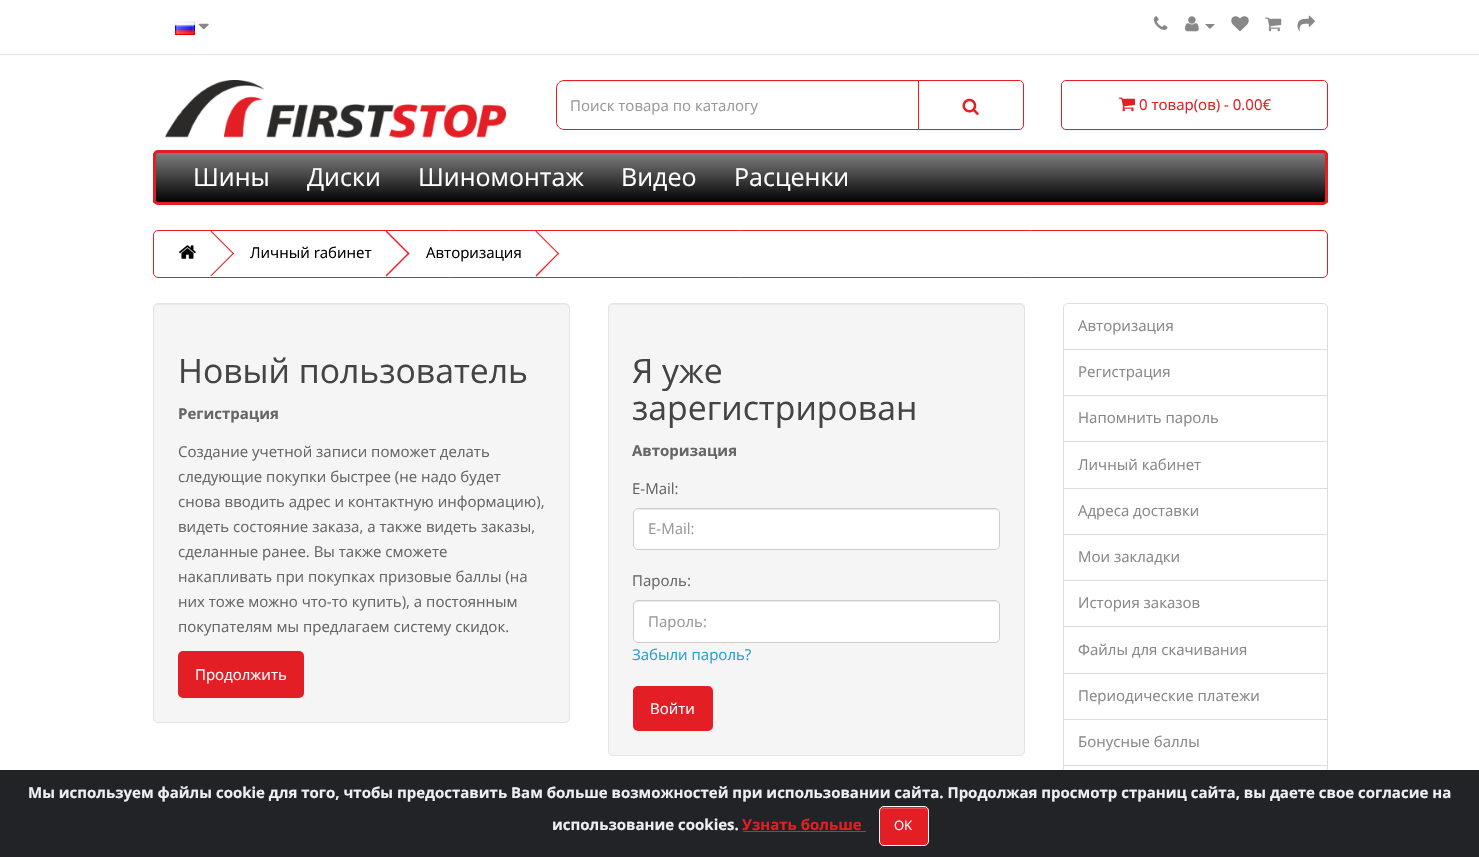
#include "include/core/SkBlurTypes.h"
#include "include/core/SkCanvas.h"
#include "include/core/SkData.h"
#include "include/core/SkFont.h"
#include "include/core/SkFontMgr.h"
#include "include/core/SkImage.h"
#include "include/core/SkMaskFilter.h"
#include "include/core/SkPaint.h"
#include "include/core/SkPathBuilder.h"
#include "include/core/SkTextBlob.h"
#include "include/effects/SkDashPathEffect.h"
#include "include/effects/SkGradientShader.h"
#include "include/utils/SkParsePath.h"

extern sk_sp<SkFontMgr> fontMgr;

void draw(SkCanvas* canvas) {
  SkPaint p;
  p.setAntiAlias(true);
  canvas->clear(SK_ColorWHITE);
  p.setColor(SkColorSetRGB(226, 226, 226));
  canvas->drawRect(SkRect::MakeLTRB(0, 54, 1479, 55), p);
  canvas->drawImageRect(SkImages::DeferredFromEncodedData(SkData::MakeFromFileName("images/1.png")), SkRect::MakeLTRB(175, 21, 195, 35), SkSamplingOptions());
  canvas->drawImageRect(SkImages::DeferredFromEncodedData(SkData::MakeFromFileName("images/2.png")), SkRect::MakeLTRB(198, 23, 209, 30), SkSamplingOptions());
  canvas->drawImageRect(SkImages::DeferredFromEncodedData(SkData::MakeFromFileName("images/3.png")), SkRect::MakeLTRB(1153, 16, 1168, 30), SkSamplingOptions());
  canvas->drawImageRect(SkImages::DeferredFromEncodedData(SkData::MakeFromFileName("images/4.png")), SkRect::MakeLTRB(1185, 16, 1199, 32), SkSamplingOptions());
  p.setColor(SkColorSetRGB(136, 136, 136));
  canvas->drawPath(SkPathBuilder().moveTo(1205, 24).lineTo(1215, 24).lineTo(1210, 29).close().detach(), p);
  canvas->drawImageRect(SkImages::DeferredFromEncodedData(SkData::MakeFromFileName("images/5.png")), SkRect::MakeLTRB(1231, 16, 1249, 32), SkSamplingOptions());
  canvas->drawImageRect(SkImages::DeferredFromEncodedData(SkData::MakeFromFileName("images/6.png")), SkRect::MakeLTRB(1265, 17, 1282, 32), SkSamplingOptions());
  canvas->drawImageRect(SkImages::DeferredFromEncodedData(SkData::MakeFromFileName("images/7.png")), SkRect::MakeLTRB(1297, 15, 1315, 32), SkSamplingOptions());
  canvas->drawImageRect(SkImages::DeferredFromEncodedData(SkData::MakeFromFileName("images/8.png")), SkRect::MakeLTRB(165, 80, 506, 138), SkSamplingOptions());
  p.setColor(SkColorSetRGB(236, 236, 236));
  canvas->drawPath(SkPathBuilder().moveTo(564, 82).lineTo(918, 82).lineTo(918, 81).lineTo(564, 81).cubicTo(561, 81, 558, 84, 558, 87).lineTo(558, 89).cubicTo(558, 85, 560, 82, 564, 82).close().detach(), p);
  p.setStyle(SkPaint::kStroke_Style);
  p.setStrokeWidth(1);
  p.setColor(SkColorSetRGB(227, 30, 36));
  canvas->drawPath(SkPathBuilder().moveTo(564, 80.5f).lineTo(918.5f, 80.5f).lineTo(918.5f, 129.5f).lineTo(564, 129.5f).cubicTo(560, 129.5f, 556.5f, 126, 556.5f, 122).lineTo(556.5f, 88).cubicTo(556.5f, 84, 560, 80.5f, 564, 80.5f).close().detach(), p);
  p.setStyle(SkPaint::kFill_Style);
  p.setColor(SkColorSetARGB(13, 0, 0, 0));
  p.setMaskFilter(SkMaskFilter::MakeBlur(kNormal_SkBlurStyle, 1));
  canvas->drawRoundRect(SkRect::MakeLTRB(918, 81, 1024, 131), 5, 5, p);
  p.setMaskFilter(nullptr);
  p.setColor(SK_ColorWHITE);
  canvas->drawPath(SkPathBuilder().moveTo(918.5f, 80.5f).lineTo(1019, 80.5f).cubicTo(1021.5f, 80.5f, 1023.5f, 82.5f, 1023.5f, 85).lineTo(1023.5f, 125).cubicTo(1023.5f, 127.5f, 1021.5f, 129.5f, 1019, 129.5f).lineTo(918.5f, 129.5f).close().detach(), p);
  p.setStyle(SkPaint::kStroke_Style);
  p.setColor(SkColorSetRGB(227, 30, 36));
  canvas->drawPath(SkPathBuilder().moveTo(918.5f, 80.5f).lineTo(1019, 80.5f).cubicTo(1021.5f, 80.5f, 1023.5f, 82.5f, 1023.5f, 85).lineTo(1023.5f, 125).cubicTo(1023.5f, 127.5f, 1021.5f, 129.5f, 1019, 129.5f).lineTo(918.5f, 129.5f).close().detach(), p);
  canvas->drawImageRect(SkImages::DeferredFromEncodedData(SkData::MakeFromFileName("images/9.png")), SkRect::MakeLTRB(962, 98, 979, 115), SkSamplingOptions());
  p.setStyle(SkPaint::kFill_Style);
  p.setColor(SkColorSetARGB(13, 0, 0, 0));
  p.setMaskFilter(SkMaskFilter::MakeBlur(kNormal_SkBlurStyle, 1));
  canvas->drawRoundRect(SkRect::MakeLTRB(1061, 81, 1328, 131), 5, 5, p);
  p.setMaskFilter(nullptr);
  p.setColor(SK_ColorWHITE);
  canvas->drawRoundRect(SkRect::MakeLTRB(1061.5f, 80.5f, 1327.5f, 129.5f), 4.5f, 4.5f, p);
  p.setStyle(SkPaint::kStroke_Style);
  p.setColor(SkColorSetRGB(227, 30, 36));
  canvas->drawRoundRect(SkRect::MakeLTRB(1061.5f, 80.5f, 1327.5f, 129.5f), 4.5f, 4.5f, p);
  canvas->drawImageRect(SkImages::DeferredFromEncodedData(SkData::MakeFromFileName("images/10.png")), SkRect::MakeLTRB(1118, 97, 1135, 112), SkSamplingOptions());
  canvas->save();
  canvas->clipPath(SkPathBuilder().moveTo(158, 150).lineTo(1323, 150).cubicTo(1326, 150, 1328, 152, 1328, 155).lineTo(1328, 200).cubicTo(1328, 203, 1326, 205, 1323, 205).lineTo(158, 205).cubicTo(155, 205, 153, 203, 153, 200).lineTo(153, 155).cubicTo(153, 152, 155, 150, 158, 150).close().detach(), true);
  p.setStyle(SkPaint::kFill_Style);
  {
    const SkColor colors[] = {SkColorSetRGB(128, 128, 128), SK_ColorBLACK};
    const float stops[] = {0, 1};
    const SkPoint ends[] = {{740, 152}, {740, 203}};
    p.setShader(SkGradientShader::MakeLinear(ends, colors, stops, 2, SkTileMode::kClamp));
    p.setAlpha(255);
  }
  canvas->drawRect(SkRect::MakeLTRB(153, 153, 1328, 203), p);
  canvas->restore();
  p.setStyle(SkPaint::kStroke_Style);
  p.setStrokeWidth(3);
  p.setShader(nullptr);
  p.setColor(SkColorSetRGB(227, 30, 36));
  canvas->drawRoundRect(SkRect::MakeLTRB(154.5f, 151.5f, 1326.5f, 203.5f), 3.5f, 3.5f, p);
  p.setStrokeWidth(1);
  canvas->drawRoundRect(SkRect::MakeLTRB(153.5f, 230.5f, 1327.5f, 277.5f), 4.5f, 4.5f, p);
  canvas->drawImageRect(SkImages::DeferredFromEncodedData(SkData::MakeFromFileName("images/11.png")), SkRect::MakeLTRB(179, 245, 196, 259), SkSamplingOptions());
  p.setStyle(SkPaint::kFill_Style);
  canvas->drawPath(SkPathBuilder().moveTo(210.5f, 231.5f).lineTo(211, 230.5f).lineTo(234, 253.5f).lineTo(233.5f, 254.5f).close().detach(), p);
  canvas->drawPath(SkPathBuilder().moveTo(210.5f, 275.5f).lineTo(233.5f, 252.5f).lineTo(234, 253.5f).lineTo(211, 276.5f).close().detach(), p);
  canvas->drawPath(SkPathBuilder().moveTo(385.5f, 231.5f).lineTo(386.5f, 230.5f).lineTo(409.5f, 253.5f).lineTo(408.5f, 254.5f).close().detach(), p);
  canvas->drawPath(SkPathBuilder().moveTo(385.5f, 275.5f).lineTo(408.5f, 252.5f).lineTo(409.5f, 253.5f).lineTo(386.5f, 276.5f).close().detach(), p);
  canvas->drawPath(SkPathBuilder().moveTo(535.5f, 231.5f).lineTo(536, 230.5f).lineTo(559, 253.5f).lineTo(558.5f, 254.5f).close().detach(), p);
  canvas->drawPath(SkPathBuilder().moveTo(535.5f, 275.5f).lineTo(558.5f, 252.5f).lineTo(559, 253.5f).lineTo(536.5f, 276.5f).close().detach(), p);
  p.setColor(SkColorSetRGB(245, 245, 245));
  canvas->drawRoundRect(SkRect::MakeLTRB(153, 303, 570, 723), 5, 5, p);
  p.setColor(SkColorSetRGB(233, 233, 233));
  canvas->drawPath(SkPathBuilder().moveTo(158, 305).lineTo(565, 305).cubicTo(567, 305, 569, 307, 569, 309).lineTo(569, 308).cubicTo(569, 306, 567, 304, 565, 304).lineTo(158, 304).cubicTo(156, 304, 154, 306, 154, 308).lineTo(154, 309).cubicTo(154, 307, 155, 305, 158, 305).close().detach(), p);
  p.setStyle(SkPaint::kStroke_Style);
  p.setColor(SkColorSetRGB(227, 227, 227));
  canvas->drawRoundRect(SkRect::MakeLTRB(153.5f, 303.5f, 569.5f, 722.5f), 4.5f, 4.5f, p);
  p.setStyle(SkPaint::kFill_Style);
  p.setColor(SkColorSetRGB(227, 30, 36));
  canvas->drawRoundRect(SkRect::MakeLTRB(179.5f, 652.5f, 302.5f, 696.5f), 3.5f, 3.5f, p);
  p.setStyle(SkPaint::kStroke_Style);
  p.setStrokeWidth(3);
  canvas->drawRoundRect(SkRect::MakeLTRB(179.5f, 652.5f, 302.5f, 696.5f), 3.5f, 3.5f, p);
  p.setStyle(SkPaint::kFill_Style);
  p.setColor(SkColorSetRGB(245, 245, 245));
  canvas->drawRoundRect(SkRect::MakeLTRB(608, 303, 1025, 756), 5, 5, p);
  p.setColor(SkColorSetRGB(233, 233, 233));
  canvas->drawPath(SkPathBuilder().moveTo(612, 305).lineTo(1020, 305).cubicTo(1022, 305, 1024, 307, 1024, 309).lineTo(1024, 308).cubicTo(1024, 306, 1022, 304, 1020, 304).lineTo(613, 304).cubicTo(611, 304, 609, 306, 609, 308).lineTo(609, 309).cubicTo(609, 307, 610, 305, 612, 305).close().detach(), p);
  p.setStyle(SkPaint::kStroke_Style);
  p.setStrokeWidth(1);
  p.setColor(SkColorSetRGB(227, 227, 227));
  canvas->drawRoundRect(SkRect::MakeLTRB(608.5f, 303.5f, 1024.5f, 755.5f), 4.5f, 4.5f, p);
  p.setStyle(SkPaint::kFill_Style);
  p.setColor(SK_ColorWHITE);
  canvas->drawRoundRect(SkRect::MakeLTRB(633, 508, 1000, 550), 5, 5, p);
  p.setColor(SkColorSetRGB(236, 236, 236));
  canvas->drawPath(SkPathBuilder().moveTo(638, 510).lineTo(995, 510).cubicTo(997, 510, 999, 512, 999, 514).lineTo(998, 511).lineTo(996, 509).lineTo(638, 509).cubicTo(635, 509, 634, 511, 634, 514).cubicTo(634, 512, 635, 510, 638, 510).close().detach(), p);
  p.setStyle(SkPaint::kStroke_Style);
  p.setColor(SkColorSetRGB(204, 204, 204));
  canvas->drawRoundRect(SkRect::MakeLTRB(633.5f, 508.5f, 999.5f, 549.5f), 4.5f, 4.5f, p);
  p.setStyle(SkPaint::kFill_Style);
  p.setColor(SK_ColorWHITE);
  canvas->drawRoundRect(SkRect::MakeLTRB(633, 600, 1000, 643), 5, 5, p);
  p.setColor(SkColorSetRGB(236, 236, 236));
  canvas->drawPath(SkPathBuilder().moveTo(638, 602).lineTo(995, 602).cubicTo(997, 602, 999, 604, 999, 606).lineTo(998, 603).lineTo(996, 601).lineTo(638, 601).cubicTo(635, 601, 634, 603, 634, 606).cubicTo(634, 604, 635, 602, 638, 602).close().detach(), p);
  p.setStyle(SkPaint::kStroke_Style);
  p.setColor(SkColorSetRGB(204, 204, 204));
  canvas->drawRoundRect(SkRect::MakeLTRB(633.5f, 600.5f, 999.5f, 642.5f), 4.5f, 4.5f, p);
  p.setStyle(SkPaint::kFill_Style);
  p.setColor(SkColorSetRGB(227, 30, 36));
  canvas->drawRoundRect(SkRect::MakeLTRB(634.5f, 687.5f, 711.5f, 729.5f), 3.5f, 3.5f, p);
  p.setStyle(SkPaint::kStroke_Style);
  p.setStrokeWidth(3);
  canvas->drawRoundRect(SkRect::MakeLTRB(634.5f, 687.5f, 711.5f, 729.5f), 3.5f, 3.5f, p);
  p.setStrokeWidth(1);
  p.setColor(SkColorSetRGB(221, 221, 221));
  canvas->drawPath(SkPathBuilder().moveTo(1068, 303.5f).lineTo(1323, 303.5f).cubicTo(1325.5f, 303.5f, 1327.5f, 305.5f, 1327.5f, 308).lineTo(1327.5f, 349.5f).lineTo(1063.5f, 349.5f).lineTo(1063.5f, 308).cubicTo(1063.5f, 305.5f, 1065.5f, 303.5f, 1068, 303.5f).close().detach(), p);
  canvas->drawRect(SkRect::MakeLTRB(1063.5f, 349.5f, 1327.5f, 395.5f), p);
  canvas->drawRect(SkRect::MakeLTRB(1063.5f, 395.5f, 1327.5f, 442.5f), p);
  p.setStyle(SkPaint::kFill_Style);
  p.setColor(SK_ColorWHITE);
  canvas->drawRect(SkRect::MakeLTRB(1064, 442, 1327, 443), p);
  p.setStyle(SkPaint::kStroke_Style);
  p.setColor(SkColorSetRGB(221, 221, 221));
  canvas->drawRect(SkRect::MakeLTRB(1063.5f, 441.5f, 1327.5f, 488.5f), p);
  canvas->drawRect(SkRect::MakeLTRB(1063.5f, 488.5f, 1327.5f, 534.5f), p);
  canvas->drawRect(SkRect::MakeLTRB(1063.5f, 534.5f, 1327.5f, 580.5f), p);
  canvas->drawRect(SkRect::MakeLTRB(1063.5f, 580.5f, 1327.5f, 627.5f), p);
  p.setStyle(SkPaint::kFill_Style);
  p.setColor(SK_ColorWHITE);
  canvas->drawRect(SkRect::MakeLTRB(1064, 627, 1327, 628), p);
  p.setStyle(SkPaint::kStroke_Style);
  p.setColor(SkColorSetRGB(221, 221, 221));
  canvas->drawRect(SkRect::MakeLTRB(1063.5f, 626.5f, 1327.5f, 673.5f), p);
  canvas->drawRect(SkRect::MakeLTRB(1063.5f, 673.5f, 1327.5f, 719.5f), p);
  canvas->drawRect(SkRect::MakeLTRB(1063.5f, 719.5f, 1327.5f, 765.5f), p);
  canvas->drawRect(SkRect::MakeLTRB(1063.5f, 765.5f, 1327.5f, 812.5f), p);
  p.setStyle(SkPaint::kFill_Style);
  p.setColor(SkColorSetRGB(33, 35, 39));
  canvas->drawRect(SkRect::MakeLTRB(0, 770, 1479, 857), p);
  p.setColor(SkColorSetRGB(227, 30, 36));
  canvas->drawRect(SkRect::MakeLTRB(743, 831, 866, 832), p);
  canvas->drawRoundRect(SkRect::MakeLTRB(879, 806, 929, 846), 5, 5, p);
  p.setColor(SkColorSetRGB(233, 75, 80));
  canvas->drawPath(SkPathBuilder().moveTo(884, 809).lineTo(924, 809).cubicTo(926, 809, 928, 810, 928, 812).cubicTo(928, 810, 926, 808, 924, 808).lineTo(884, 808).cubicTo(882, 808, 880, 810, 880, 812).cubicTo(880, 810, 882, 809, 884, 809).close().detach(), p);
  p.setStyle(SkPaint::kStroke_Style);
  p.setColor(SK_ColorWHITE);
  canvas->drawRoundRect(SkRect::MakeLTRB(879.5f, 806.5f, 928.5f, 845.5f), 4.5f, 4.5f, p);
  SkFont font1(fontMgr->matchFamilyStyle("Open Sans", SkFontStyle::Normal()), 15);
  font1.setSubpixel(true);
  p.setStyle(SkPaint::kFill_Style);
  p.setColor(SkColorSetRGB(153, 153, 153));
  canvas->drawString("Поиск товара по каталогу", 570, 111, font1, p);
  p.setColor(SkColorSetRGB(227, 30, 36));
  canvas->drawString("0 товар(ов) - 0.00€", 1139, 110, font1, p);
  SkFont font2(fontMgr->matchFamilyStyle("Open Sans", SkFontStyle::Normal()), 25);
  font2.setSubpixel(true);
  p.setColor(SK_ColorWHITE);
  canvas->drawString("Шины", 193, 186, font2, p);
  canvas->drawString("Диски", 307, 186, font2, p);
  canvas->drawString("Шиномонтаж", 418, 186, font2, p);
  canvas->drawString("Видео", 621, 186, font2, p);
  canvas->drawString("Расценки", 734, 186, font2, p);
  p.setColor(SK_ColorBLACK);
  canvas->drawString("Личный rабинет", 250, 258, font1, p);
  canvas->drawString("Авторизация", 426, 258, font1, p);
  SkFont font3(fontMgr->matchFamilyStyle("Open Sans", SkFontStyle::Normal()), 33.75f);
  font3.setSubpixel(true);
  p.setColor(SkColorSetRGB(68, 68, 68));
  canvas->drawString("Новый пользователь", 178, 383, font3, p);
  SkFont font4(fontMgr->matchFamilyStyle("Open Sans", SkFontStyle::Bold()), 15);
  font4.setSubpixel(true);
  p.setColor(SkColorSetRGB(102, 102, 102));
  canvas->drawString("Регистрация", 178, 419, font4, p);
  canvas->drawString("Создание учетной записи поможет делать", 178, 457, font1, p);
  canvas->drawString("следующие покупки быстрее (не надо будет", 178, 482, font1, p);
  canvas->drawString("снова вводить адрес и контактную информацию),", 178, 507, font1, p);
  canvas->drawString("видеть состояние заказа, а также видеть заказы,", 178, 532, font1, p);
  canvas->drawString("сделанные ранее. Вы также сможете", 178, 557, font1, p);
  canvas->drawString("накапливать при покупках призовые баллы (на", 178, 582, font1, p);
  canvas->drawString("них тоже можно что-то купить), а постоянным", 178, 607, font1, p);
  canvas->drawString("покупателям мы предлагаем систему скидок.", 178, 632, font1, p);
  p.setColor(SK_ColorWHITE);
  canvas->drawString("Продолжить", 195, 680, font1, p);
  p.setColor(SkColorSetRGB(68, 68, 68));
  canvas->drawString("Я уже", 632, 383, font3, p);
  canvas->drawString("зарегистрирован", 632, 420, font3, p);
  p.setColor(SkColorSetRGB(102, 102, 102));
  canvas->drawString("Авторизация", 632, 456, font4, p);
  canvas->drawString("E-Mail:", 632, 494, font1, p);
  p.setColor(SkColorSetRGB(153, 153, 153));
  canvas->drawString("E-Mail:", 648, 534, font1, p);
  p.setColor(SkColorSetRGB(102, 102, 102));
  canvas->drawString("Пароль:", 632, 586, font1, p);
  p.setColor(SkColorSetRGB(153, 153, 153));
  canvas->drawString("Пароль:", 648, 627, font1, p);
  p.setColor(SkColorSetRGB(35, 161, 209));
  canvas->drawString("Забыли пароль?", 632, 660, font1, p);
  p.setColor(SK_ColorWHITE);
  canvas->drawString("Войти", 650, 714, font1, p);
  p.setColor(SkColorSetRGB(136, 136, 136));
  canvas->drawString("Авторизация", 1078, 331, font1, p);
  canvas->drawString("Регистрация", 1078, 377, font1, p);
  canvas->drawString("Напомнить пароль", 1078, 423, font1, p);
  canvas->drawString("Личный кабинет", 1078, 470, font1, p);
  canvas->drawString("Адреса доставки", 1078, 516, font1, p);
  canvas->drawString("Мои закладки", 1078, 562, font1, p);
  canvas->drawString("История заказов", 1078, 608, font1, p);
  canvas->drawString("Файлы для скачивания", 1078, 655, font1, p);
  canvas->drawString("Периодические платежи", 1078, 701, font1, p);
  canvas->drawString("Бонусные баллы", 1078, 747, font1, p);
  p.setColor(SkColorSetRGB(236, 240, 241));
  canvas->drawString("Мы используем файлы cookie для того, чтобы предоставить Вам больше возможностей при использовании сайта. Продолжая просмотр страниц сайта, вы даете свое согласие на", 28, 798, font4, p);
  canvas->drawString("использование cookies.", 552, 830, font4, p);
  p.setColor(SkColorSetRGB(227, 30, 36));
  canvas->drawString("Узнать больше", 742, 830, font4, p);
  SkFont font5(fontMgr->matchFamilyStyle("Open Sans", SkFontStyle::Normal()), 13);
  font5.setSubpixel(true);
  p.setColor(SK_ColorWHITE);
  canvas->drawString("OK", 894, 830, font5, p);
}
